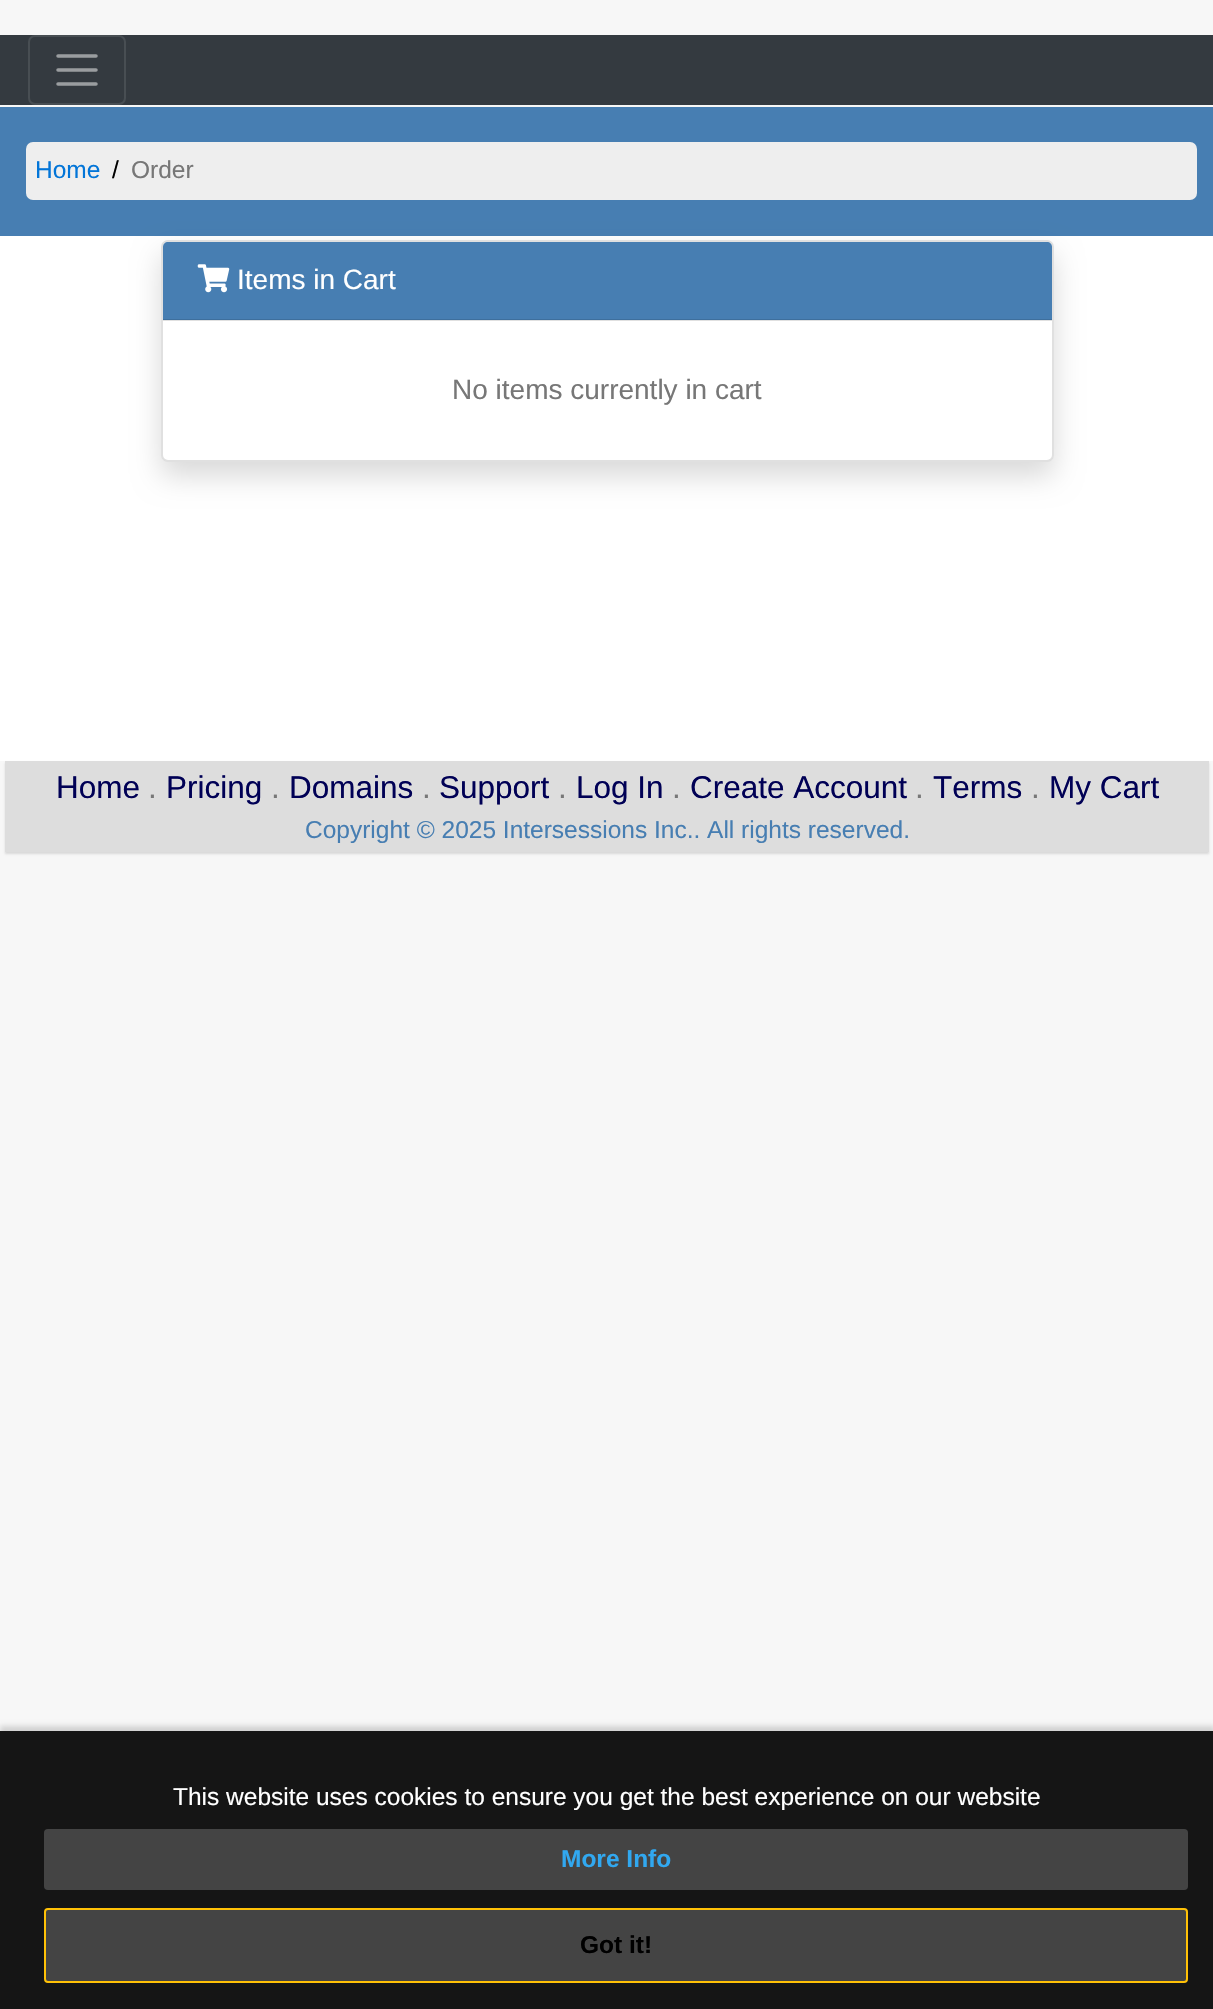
#include "include/core/SkBlurTypes.h"
#include "include/core/SkCanvas.h"
#include "include/core/SkData.h"
#include "include/core/SkFont.h"
#include "include/core/SkFontMgr.h"
#include "include/core/SkImage.h"
#include "include/core/SkMaskFilter.h"
#include "include/core/SkPaint.h"
#include "include/core/SkPathBuilder.h"
#include "include/core/SkTextBlob.h"
#include "include/effects/SkDashPathEffect.h"
#include "include/effects/SkGradientShader.h"
#include "include/utils/SkParsePath.h"

extern sk_sp<SkFontMgr> fontMgr;

void draw(SkCanvas* canvas) {
  SkPaint p;
  p.setAntiAlias(true);
  canvas->clear(SkColorSetRGB(247, 247, 247));
  p.setColor(SkColorSetRGB(52, 58, 64));
  canvas->drawRect(SkRect::MakeLTRB(0, 35, 1213, 105), p);
  p.setStyle(SkPaint::kStroke_Style);
  p.setStrokeWidth(2);
  p.setColor(SkColorSetRGB(72, 78, 83));
  canvas->drawRoundRect(SkRect::MakeLTRB(29, 36, 125, 104), 6, 6, p);
  p.setStrokeWidth(3.5f);
  p.setStrokeCap(SkPaint::kRound_Cap);
  p.setColor(SkColorSetRGB(154, 157, 160));
  canvas->drawPath(SkPathBuilder().moveTo(58, 56).lineTo(96, 56).moveTo(58, 70).lineTo(96, 70).moveTo(58, 84).lineTo(96, 84).detach(), p);
  p.setStyle(SkPaint::kFill_Style);
  p.setColor(SK_ColorWHITE);
  canvas->drawRect(SkRect::MakeLTRB(0, 236, 1213, 761), p);
  p.setColor(SkColorSetRGB(71, 126, 178));
  canvas->drawRect(SkRect::MakeLTRB(0, 107, 1213, 236), p);
  p.setColor(SkColorSetRGB(238, 238, 238));
  canvas->drawRoundRect(SkRect::MakeLTRB(26, 142, 1197, 200), 7, 7, p);
  p.setColor(SkColorSetARGB(38, 0, 0, 0));
  p.setMaskFilter(SkMaskFilter::MakeBlur(kNormal_SkBlurStyle, 14));
  canvas->drawRoundRect(SkRect::MakeLTRB(161, 254, 1054, 476), 7, 7, p);
  p.setMaskFilter(nullptr);
  p.setColor(SK_ColorWHITE);
  canvas->drawRoundRect(SkRect::MakeLTRB(161, 240, 1054, 462), 7, 7, p);
  p.setColor(SkColorSetRGB(224, 224, 224));
  canvas->drawRect(SkRect::MakeLTRB(163, 320, 1052, 321), p);
  p.setStyle(SkPaint::kStroke_Style);
  p.setStrokeWidth(2);
  p.setStrokeCap(SkPaint::kButt_Cap);
  p.setColor(SkColorSetARGB(31, 0, 0, 0));
  canvas->drawRoundRect(SkRect::MakeLTRB(162, 241, 1053, 461), 6, 6, p);
  p.setStyle(SkPaint::kFill_Style);
  p.setColor(SkColorSetRGB(71, 126, 178));
  canvas->drawPath(SkPathBuilder().moveTo(168, 242).lineTo(1047, 242).cubicTo(1050, 242, 1052, 244, 1052, 247).lineTo(1052, 320).lineTo(163, 320).lineTo(163, 247).cubicTo(163, 244, 165, 242, 168, 242).close().detach(), p);
  p.setColor(SkColorSetRGB(62, 111, 157));
  canvas->drawRect(SkRect::MakeLTRB(163, 319, 1052, 320), p);
  canvas->drawImageRect(SkImages::DeferredFromEncodedData(SkData::MakeFromFileName("images/1.png")), SkRect::MakeLTRB(197, 264, 230, 293), SkSamplingOptions());
  p.setColor(SkColorSetARGB(31, 0, 0, 0));
  p.setMaskFilter(SkMaskFilter::MakeBlur(kNormal_SkBlurStyle, 1));
  canvas->drawRect(SkRect::MakeLTRB(5, 763, 1209, 854), p);
  p.setMaskFilter(nullptr);
  p.setColor(SkColorSetRGB(221, 221, 221));
  canvas->drawRect(SkRect::MakeLTRB(5, 761, 1209, 852), p);
  p.setColor(SkColorSetARGB(38, 0, 0, 0));
  p.setMaskFilter(SkMaskFilter::MakeBlur(kNormal_SkBlurStyle, 2.5f));
  canvas->drawRect(SkRect::MakeLTRB(0, 1726, 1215, 2004), p);
  p.setMaskFilter(nullptr);
  p.setColor(SkColorSetRGB(21, 21, 21));
  canvas->drawRect(SkRect::MakeLTRB(0, 1731, 1213, 2009), p);
  p.setColor(SkColorSetRGB(68, 68, 68));
  canvas->drawRoundRect(SkRect::MakeLTRB(44, 1829, 1188, 1890), 4, 4, p);
  canvas->drawRoundRect(SkRect::MakeLTRB(45, 1909, 1187, 1982), 3, 3, p);
  p.setStyle(SkPaint::kStroke_Style);
  p.setColor(SkColorSetRGB(255, 193, 7));
  canvas->drawRoundRect(SkRect::MakeLTRB(45, 1909, 1187, 1982), 3, 3, p);
  SkFont font1(fontMgr->matchFamilyStyle("Liberation Sans", SkFontStyle::Normal()), 24.5f);
  font1.setSubpixel(true);
  p.setStyle(SkPaint::kFill_Style);
  p.setColor(SkColorSetRGB(2, 117, 216));
  canvas->drawString("Home", 35, 178, font1, p);
  p.setColor(SK_ColorBLACK);
  canvas->drawString("/", 112, 178, font1, p);
  p.setColor(SkColorSetRGB(119, 119, 119));
  canvas->drawString("Order", 131, 178, font1, p);
  SkFont font2(fontMgr->matchFamilyStyle("Liberation Sans", SkFontStyle::Normal()), 28);
  font2.setSubpixel(true);
  p.setColor(SK_ColorWHITE);
  canvas->drawString("Items in Cart", 237, 289, font2, p);
  p.setColor(SkColorSetRGB(119, 119, 119));
  canvas->drawString("No items currently in cart", 452, 399, font2, p);
  SkFont font3(fontMgr->matchFamilyStyle("Liberation Sans", SkFontStyle::Normal()), 31.5f);
  font3.setSubpixel(true);
  p.setColor(SkColorSetRGB(0, 0, 85));
  canvas->drawString("Home", 56, 798, font3, p);
  p.setColor(SkColorSetRGB(119, 119, 119));
  canvas->drawString(".", 148, 798, font3, p);
  p.setColor(SkColorSetRGB(0, 0, 85));
  canvas->drawString("Pricing", 166, 798, font3, p);
  p.setColor(SkColorSetRGB(119, 119, 119));
  canvas->drawString(".", 271, 798, font3, p);
  p.setColor(SkColorSetRGB(0, 0, 85));
  canvas->drawString("Domains", 289, 798, font3, p);
  p.setColor(SkColorSetRGB(119, 119, 119));
  canvas->drawString(".", 422, 798, font3, p);
  p.setColor(SkColorSetRGB(0, 0, 85));
  canvas->drawString("Support", 439, 798, font3, p);
  p.setColor(SkColorSetRGB(119, 119, 119));
  canvas->drawString(".", 558, 798, font3, p);
  p.setColor(SkColorSetRGB(0, 0, 85));
  canvas->drawString("Log In", 576, 798, font3, p);
  p.setColor(SkColorSetRGB(119, 119, 119));
  canvas->drawString(".", 672, 798, font3, p);
  p.setColor(SkColorSetRGB(0, 0, 85));
  canvas->drawString("Create Account", 690, 798, font3, p);
  p.setColor(SkColorSetRGB(119, 119, 119));
  canvas->drawString(".", 915, 798, font3, p);
  p.setColor(SkColorSetRGB(0, 0, 85));
  canvas->drawString("Terms", 933, 798, font3, p);
  p.setColor(SkColorSetRGB(119, 119, 119));
  canvas->drawString(".", 1031, 798, font3, p);
  p.setColor(SkColorSetRGB(0, 0, 85));
  canvas->drawString("My Cart", 1049, 798, font3, p);
  p.setColor(SkColorSetRGB(71, 126, 178));
  canvas->drawString("Copyright © 2025 Intersessions Inc.. All rights reserved.", 305, 838, font1, p);
  p.setColor(SK_ColorWHITE);
  canvas->drawString("This website uses cookies to ensure you get the best experience on our website", 173, 1805, font1, p);
  SkFont font4(fontMgr->matchFamilyStyle("Liberation Sans", SkFontStyle::Bold()), 24.5f);
  font4.setSubpixel(true);
  p.setColor(SkColorSetRGB(49, 168, 240));
  canvas->drawString("More Info", 561, 1867, font4, p);
  p.setColor(SK_ColorBLACK);
  canvas->drawString("Got it!", 580, 1953, font4, p);
}
